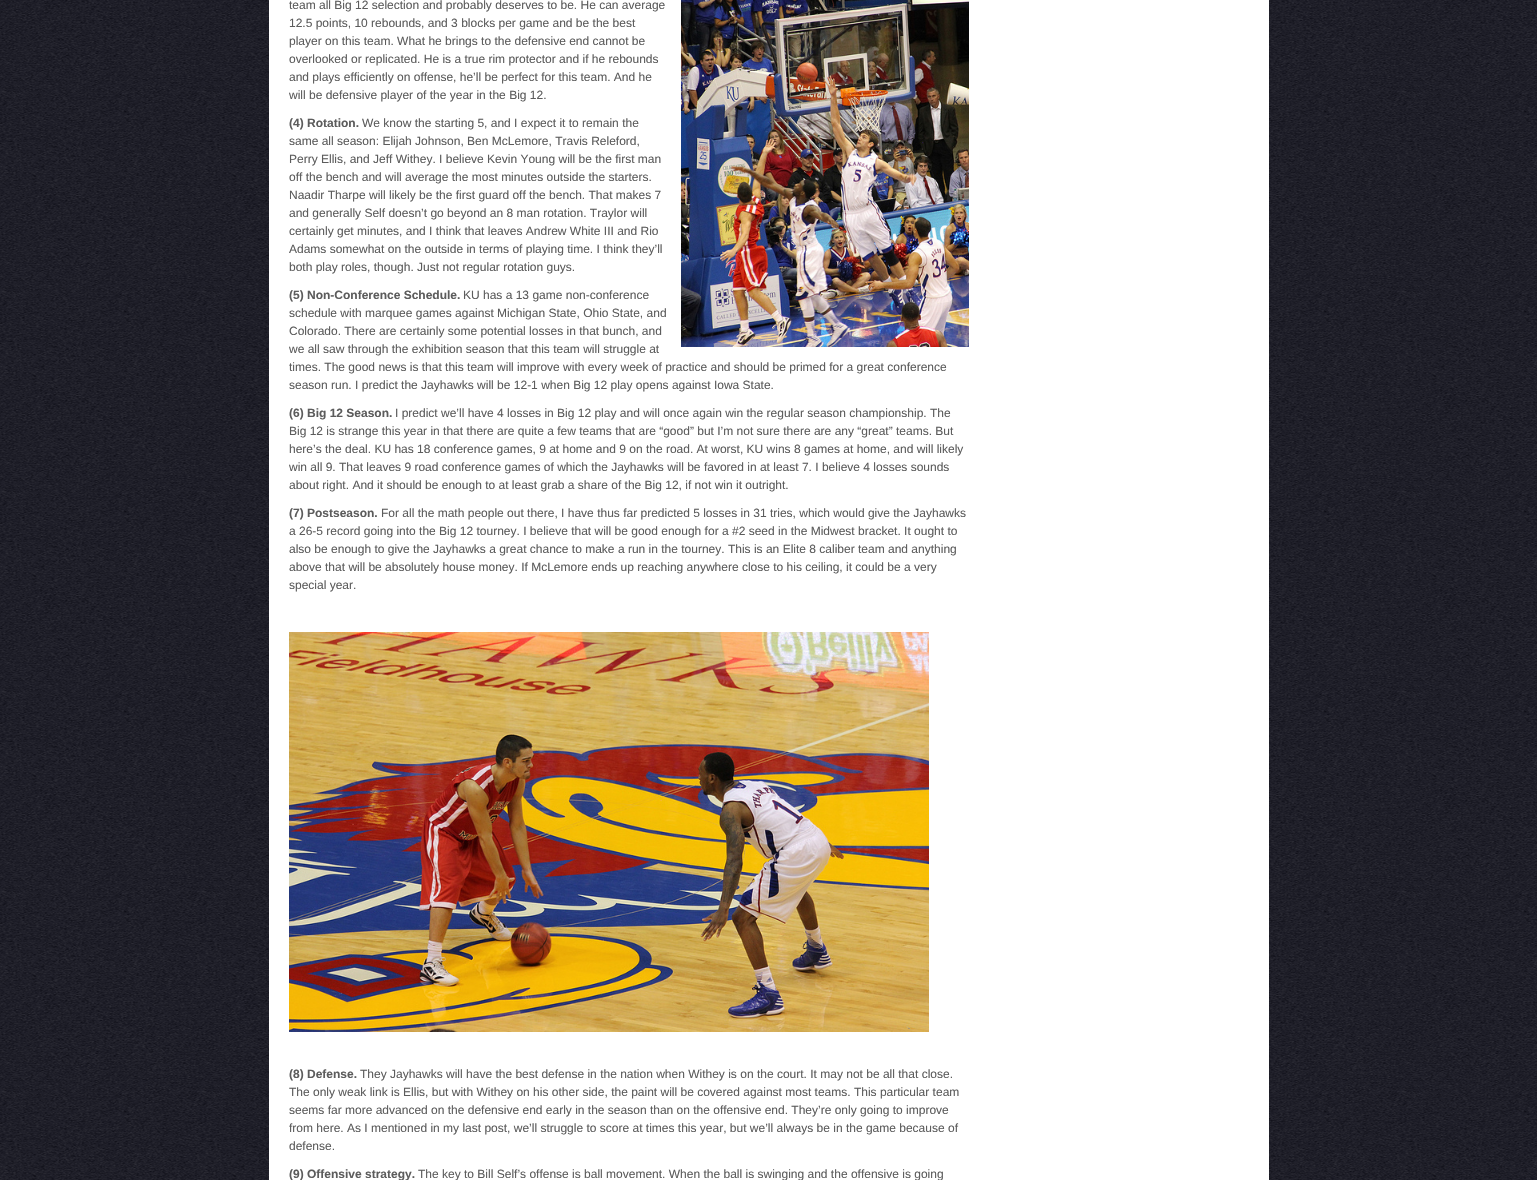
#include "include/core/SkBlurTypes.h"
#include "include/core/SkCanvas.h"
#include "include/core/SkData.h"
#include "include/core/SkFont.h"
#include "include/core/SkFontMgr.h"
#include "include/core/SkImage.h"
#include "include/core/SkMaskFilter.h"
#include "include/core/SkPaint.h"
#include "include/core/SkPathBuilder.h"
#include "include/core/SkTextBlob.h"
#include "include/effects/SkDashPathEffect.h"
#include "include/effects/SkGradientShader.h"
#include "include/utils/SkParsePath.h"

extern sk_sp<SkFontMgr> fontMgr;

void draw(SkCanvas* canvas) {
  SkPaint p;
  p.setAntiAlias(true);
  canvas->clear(SK_ColorWHITE);
  canvas->drawImageRect(SkImages::DeferredFromEncodedData(SkData::MakeFromFileName("images/1.png")), SkRect::MakeLTRB(0, 0, 1537, 1180), SkSamplingOptions());
  p.setColor(SK_ColorWHITE);
  canvas->drawRect(SkRect::MakeLTRB(269, 0, 1269, 1180), p);
  canvas->drawImageRect(SkImages::DeferredFromEncodedData(SkData::MakeFromFileName("images/2.png")), SkRect::MakeLTRB(681, 0, 969, 347), SkSamplingOptions());
  canvas->drawImageRect(SkImages::DeferredFromEncodedData(SkData::MakeFromFileName("images/3.png")), SkRect::MakeLTRB(289, 632, 929, 1032), SkSamplingOptions());
  SkFont font1(fontMgr->matchFamilyStyle("Liberation Sans", SkFontStyle::Normal()), 12);
  font1.setSubpixel(true);
  p.setColor(SkColorSetRGB(92, 92, 92));
  canvas->drawString("team all Big 12 selection and probably deserves to be. He can average", 289, 9, font1, p);
  canvas->drawString("12.5 points, 10 rebounds, and 3 blocks per game and be the best", 289, 27, font1, p);
  canvas->drawString("player on this team. What he brings to the defensive end cannot be", 289, 45, font1, p);
  canvas->drawString("overlooked or replicated. He is a true rim protector and if he rebounds", 289, 63, font1, p);
  canvas->drawString("and plays efficiently on offense, he’ll be perfect for this team. And he", 289, 81, font1, p);
  canvas->drawString("will be defensive player of the year in the Big 12.", 289, 99, font1, p);
  SkFont font2(fontMgr->matchFamilyStyle("Liberation Sans", SkFontStyle::Bold()), 12);
  font2.setSubpixel(true);
  canvas->drawString("(4) Rotation.", 289, 127, font2, p);
  canvas->drawString("We know the starting 5, and I expect it to remain the", 362, 127, font1, p);
  canvas->drawString("same all season: Elijah Johnson, Ben McLemore, Travis Releford,", 289, 145, font1, p);
  canvas->drawString("Perry Ellis, and Jeff Withey. I believe Kevin Young will be the first man", 289, 163, font1, p);
  canvas->drawString("off the bench and will average the most minutes outside the starters.", 289, 181, font1, p);
  canvas->drawString("Naadir Tharpe will likely be the first guard off the bench. That makes 7", 289, 199, font1, p);
  canvas->drawString("and generally Self doesn’t go beyond an 8 man rotation. Traylor will", 289, 217, font1, p);
  canvas->drawString("certainly get minutes, and I think that leaves Andrew White III and Rio", 289, 235, font1, p);
  canvas->drawString("Adams somewhat on the outside in terms of playing time. I think they’ll", 289, 253, font1, p);
  canvas->drawString("both play roles, though. Just not regular rotation guys.", 289, 271, font1, p);
  canvas->drawString("(5) Non-Conference Schedule.", 289, 299, font2, p);
  canvas->drawString("KU has a 13 game non-conference", 463, 299, font1, p);
  canvas->drawString("schedule with marquee games against Michigan State, Ohio State, and", 289, 317, font1, p);
  canvas->drawString("Colorado. There are certainly some potential losses in that bunch, and", 289, 335, font1, p);
  canvas->drawString("we all saw through the exhibition season that this team will struggle at", 289, 353, font1, p);
  canvas->drawString("times. The good news is that this team will improve with every week of practice and should be primed for a great conference", 289, 371, font1, p);
  canvas->drawString("season run. I predict the Jayhawks will be 12-1 when Big 12 play opens against Iowa State.", 289, 389, font1, p);
  canvas->drawString("(6) Big 12 Season.", 289, 417, font2, p);
  canvas->drawString("I predict we’ll have 4 losses in Big 12 play and will once again win the regular season championship. The", 395, 417, font1, p);
  canvas->drawString("Big 12 is strange this year in that there are quite a few teams that are “good” but I’m not sure there are any “great” teams. But", 289, 435, font1, p);
  canvas->drawString("here’s the deal. KU has 18 conference games, 9 at home and 9 on the road. At worst, KU wins 8 games at home, and will likely", 289, 453, font1, p);
  canvas->drawString("win all 9. That leaves 9 road conference games of which the Jayhawks will be favored in at least 7. I believe 4 losses sounds", 289, 471, font1, p);
  canvas->drawString("about right. And it should be enough to at least grab a share of the Big 12, if not win it outright.", 289, 489, font1, p);
  canvas->drawString("(7) Postseason.", 289, 517, font2, p);
  canvas->drawString("For all the math people out there, I have thus far predicted 5 losses in 31 tries, which would give the Jayhawks", 381, 517, font1, p);
  canvas->drawString("a 26-5 record going into the Big 12 tourney. I believe that will be good enough for a #2 seed in the Midwest bracket. It ought to", 289, 535, font1, p);
  canvas->drawString("also be enough to give the Jayhawks a great chance to make a run in the tourney. This is an Elite 8 caliber team and anything", 289, 553, font1, p);
  canvas->drawString("above that will be absolutely house money. If McLemore ends up reaching anywhere close to his ceiling, it could be a very", 289, 571, font1, p);
  canvas->drawString("special year.", 289, 589, font1, p);
  canvas->drawString("(8) Defense.", 289, 1078, font2, p);
  canvas->drawString("They Jayhawks will have the best defense in the nation when Withey is on the court. It may not be all that close.", 360, 1078, font1, p);
  canvas->drawString("The only weak link is Ellis, but with Withey on his other side, the paint will be covered against most teams. This particular team", 289, 1096, font1, p);
  canvas->drawString("seems far more advanced on the defensive end early in the season than on the offensive end. They’re only going to improve", 289, 1114, font1, p);
  canvas->drawString("from here. As I mentioned in my last post, we’ll struggle to score at times this year, but we’ll always be in the game because of", 289, 1132, font1, p);
  canvas->drawString("defense.", 289, 1150, font1, p);
  canvas->drawString("(9) Offensive strategy.", 289, 1178, font2, p);
  canvas->drawString("The key to Bill Self’s offense is ball movement. When the ball is swinging and the offensive is going", 418, 1178, font1, p);
}
